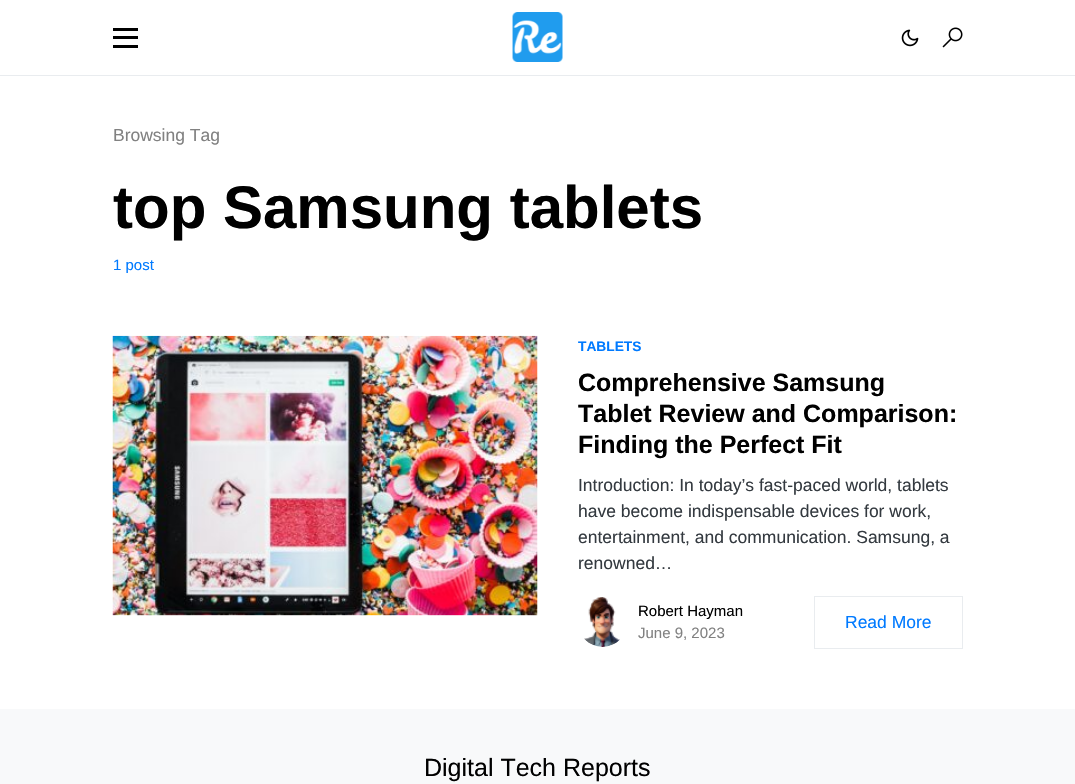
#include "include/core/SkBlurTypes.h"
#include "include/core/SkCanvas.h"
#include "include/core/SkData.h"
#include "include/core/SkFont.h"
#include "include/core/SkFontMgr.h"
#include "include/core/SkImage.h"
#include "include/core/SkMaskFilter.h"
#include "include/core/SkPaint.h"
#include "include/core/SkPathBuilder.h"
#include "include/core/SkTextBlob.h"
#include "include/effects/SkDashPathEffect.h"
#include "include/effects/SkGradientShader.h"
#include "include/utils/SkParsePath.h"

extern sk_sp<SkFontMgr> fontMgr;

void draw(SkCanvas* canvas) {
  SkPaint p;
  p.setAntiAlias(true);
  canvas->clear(SK_ColorWHITE);
  p.setColor(SkColorSetRGB(233, 236, 239));
  canvas->drawRect(SkRect::MakeLTRB(0, 75, 1075, 76), p);
  p.setColor(SK_ColorBLACK);
  canvas->drawRect(SkRect::MakeLTRB(113, 28, 138, 31), p);
  canvas->drawRect(SkRect::MakeLTRB(113, 36, 138, 39), p);
  canvas->drawRect(SkRect::MakeLTRB(113, 45, 138, 48), p);
  canvas->drawImageRect(SkImages::DeferredFromEncodedData(SkData::MakeFromFileName("images/1.png")), SkRect::MakeLTRB(512, 12, 563, 62), SkSamplingOptions());
  canvas->drawImageRect(SkImages::DeferredFromEncodedData(SkData::MakeFromFileName("images/2.png")), SkRect::MakeLTRB(901, 29, 919, 47), SkSamplingOptions());
  canvas->drawImageRect(SkImages::DeferredFromEncodedData(SkData::MakeFromFileName("images/3.png")), SkRect::MakeLTRB(942, 27, 963, 48), SkSamplingOptions());
  canvas->drawImageRect(SkImages::DeferredFromEncodedData(SkData::MakeFromFileName("images/4.png")), SkRect::MakeLTRB(112, 335, 538, 616), SkSamplingOptions());
  canvas->drawImageRect(SkImages::DeferredFromEncodedData(SkData::MakeFromFileName("images/5.png")), SkRect::MakeLTRB(584, 597, 620, 647), SkSamplingOptions());
  p.setStyle(SkPaint::kStroke_Style);
  p.setStrokeWidth(1);
  p.setColor(SkColorSetRGB(233, 236, 239));
  canvas->drawRect(SkRect::MakeLTRB(814.5f, 596.5f, 962.5f, 648.5f), p);
  p.setStyle(SkPaint::kFill_Style);
  p.setColor(SkColorSetRGB(248, 249, 250));
  canvas->drawRect(SkRect::MakeLTRB(0, 709, 1075, 784), p);
  SkFont font1(fontMgr->matchFamilyStyle("Liberation Sans", SkFontStyle::Normal()), 17.5f);
  font1.setSubpixel(true);
  p.setColor(SkColorSetRGB(129, 129, 129));
  canvas->drawString("Browsing Tag", 113, 141, font1, p);
  SkFont font2(fontMgr->matchFamilyStyle("Liberation Sans", SkFontStyle::Bold()), 60);
  font2.setSubpixel(true);
  p.setColor(SK_ColorBLACK);
  canvas->drawString("top Samsung tablets", 113, 228, font2, p);
  SkFont font3(fontMgr->matchFamilyStyle("Liberation Sans", SkFontStyle::Normal()), 15);
  font3.setSubpixel(true);
  p.setColor(SkColorSetRGB(0, 122, 255));
  canvas->drawString("1 post", 113, 270, font3, p);
  SkFont font4(fontMgr->matchFamilyStyle("Liberation Sans", SkFontStyle::Bold()), 13.75f);
  font4.setSubpixel(true);
  canvas->drawString("TABLETS", 578, 351, font4, p);
  SkFont font5(fontMgr->matchFamilyStyle("Liberation Sans", SkFontStyle::Bold()), 25);
  font5.setSubpixel(true);
  p.setColor(SK_ColorBLACK);
  canvas->drawString("Comprehensive Samsung", 578, 391, font5, p);
  canvas->drawString("Tablet Review and Comparison:", 578, 422, font5, p);
  canvas->drawString("Finding the Perfect Fit", 578, 453, font5, p);
  p.setColor(SkColorSetRGB(52, 58, 64));
  canvas->drawString("Introduction: In today’s fast-paced world, tablets", 578, 491, font1, p);
  canvas->drawString("have become indispensable devices for work,", 578, 517, font1, p);
  canvas->drawString("entertainment, and communication. Samsung, a", 578, 543, font1, p);
  canvas->drawString("renowned…", 578, 569, font1, p);
  p.setColor(SK_ColorBLACK);
  canvas->drawString("Robert Hayman", 638, 616, font3, p);
  p.setColor(SkColorSetRGB(129, 129, 129));
  canvas->drawString("June 9, 2023", 638, 638, font3, p);
  p.setColor(SkColorSetRGB(0, 122, 255));
  canvas->drawString("Read More", 845, 628, font1, p);
  SkFont font6(fontMgr->matchFamilyStyle("Liberation Sans", SkFontStyle::Normal()), 25);
  font6.setSubpixel(true);
  p.setColor(SK_ColorBLACK);
  canvas->drawString("Digital Tech Reports", 424, 776, font6, p);
}
